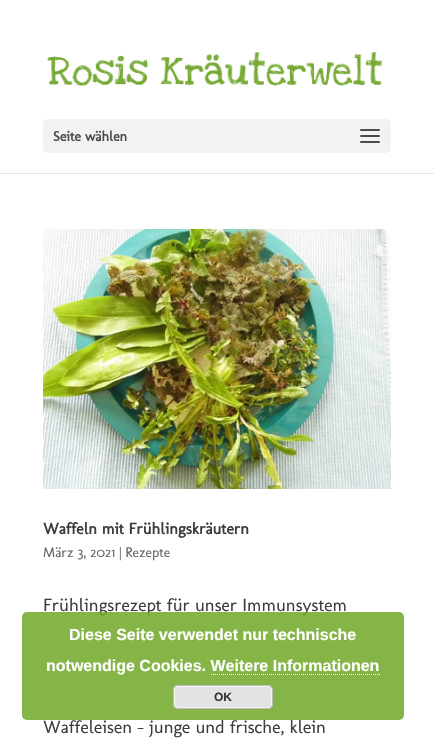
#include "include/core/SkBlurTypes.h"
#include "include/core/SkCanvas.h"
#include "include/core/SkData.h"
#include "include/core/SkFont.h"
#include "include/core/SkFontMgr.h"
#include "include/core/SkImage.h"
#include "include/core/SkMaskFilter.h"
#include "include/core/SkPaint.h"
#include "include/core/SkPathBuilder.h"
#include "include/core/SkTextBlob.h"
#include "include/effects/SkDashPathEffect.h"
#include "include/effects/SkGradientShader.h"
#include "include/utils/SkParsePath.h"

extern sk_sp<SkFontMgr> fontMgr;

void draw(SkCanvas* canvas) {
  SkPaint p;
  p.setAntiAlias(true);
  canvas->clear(SK_ColorWHITE);
  p.setColor(SkColorSetRGB(230, 230, 230));
  canvas->drawRect(SkRect::MakeLTRB(0, 173, 434, 174), p);
  canvas->drawImageRect(SkImages::DeferredFromEncodedData(SkData::MakeFromFileName("images/1.png")), SkRect::MakeLTRB(47, 51, 383, 86), SkSamplingOptions());
  p.setColor(SkColorSetRGB(242, 242, 242));
  canvas->drawRoundRect(SkRect::MakeLTRB(43, 119, 391, 153), 5, 5, p);
  canvas->drawImageRect(SkImages::DeferredFromEncodedData(SkData::MakeFromFileName("images/2.png")), SkRect::MakeLTRB(360, 129, 380, 143), SkSamplingOptions());
  canvas->drawImageRect(SkImages::DeferredFromEncodedData(SkData::MakeFromFileName("images/3.png")), SkRect::MakeLTRB(43, 229, 391, 489), SkSamplingOptions());
  SkFont font1(fontMgr->matchFamilyStyle("Molengo", SkFontStyle::Bold()), 14);
  font1.setSubpixel(true);
  p.setColor(SkColorSetRGB(75, 75, 75));
  canvas->drawString("Seite wählen", 53, 141, font1, p);
  SkFont font2(fontMgr->matchFamilyStyle("Molengo", SkFontStyle::Bold()), 16);
  font2.setSubpixel(true);
  p.setColor(SkColorSetRGB(61, 61, 61));
  canvas->drawString("Waffeln mit Frühlingskräutern", 43, 534, font2, p);
  SkFont font3(fontMgr->matchFamilyStyle("Molengo", SkFontStyle::Normal()), 14);
  font3.setSubpixel(true);
  p.setColor(SkColorSetRGB(102, 102, 102));
  canvas->drawString("März 3, 2021 | Rezepte", 43, 557, font3, p);
  SkFont font4(fontMgr->matchFamilyStyle("Molengo", SkFontStyle::Normal()), 18);
  font4.setSubpixel(true);
  p.setColor(SkColorSetRGB(61, 61, 61));
  canvas->drawString("Frühlingsrezept für unser Immunsystem", 43, 611, font4, p);
  canvas->drawString("Waffeleisen – junge und frische, klein", 43, 733, font4, p);
  p.setColor(SkColorSetARGB(217, 112, 168, 38));
  canvas->drawRoundRect(SkRect::MakeLTRB(22, 612, 404, 720), 5, 5, p);
  SkFont font5(fontMgr->matchFamilyStyle("Liberation Sans", SkFontStyle::Bold()), 16);
  font5.setSubpixel(true);
  p.setColor(SK_ColorWHITE);
  canvas->drawString("Diese Seite verwendet nur technische", 69, 640, font5, p);
  canvas->drawString("notwendige Cookies. Weitere Informationen", 46, 671, font5, p);
  p.setStyle(SkPaint::kStroke_Style);
  p.setStrokeWidth(1);
  p.setPathEffect(SkDashPathEffect::Make({{1, 1}}, 0));
  canvas->drawPath(SkPathBuilder().moveTo(211, 674.5f).lineTo(380, 674.5f).detach(), p);
  p.setPathEffect(nullptr);
  p.setStyle(SkPaint::kFill_Style);
  p.setColor(SkColorSetRGB(227, 227, 227));
  canvas->drawRoundRect(SkRect::MakeLTRB(173, 685, 273, 709), 5, 5, p);
  p.setStyle(SkPaint::kStroke_Style);
  p.setColor(SkColorSetRGB(246, 246, 246));
  canvas->drawRoundRect(SkRect::MakeLTRB(174.5f, 686.5f, 271.5f, 707.5f), 3.5f, 3.5f, p);
  p.setColor(SkColorSetRGB(187, 187, 187));
  canvas->drawRoundRect(SkRect::MakeLTRB(173.5f, 685.5f, 272.5f, 708.5f), 4.5f, 4.5f, p);
  SkFont font6(fontMgr->matchFamilyStyle("Liberation Sans", SkFontStyle::Bold()), 12);
  font6.setSubpixel(true);
  p.setStyle(SkPaint::kFill_Style);
  p.setColor(SkColorSetRGB(51, 51, 51));
  canvas->drawString("OK", 214, 701, font6, p);
}
